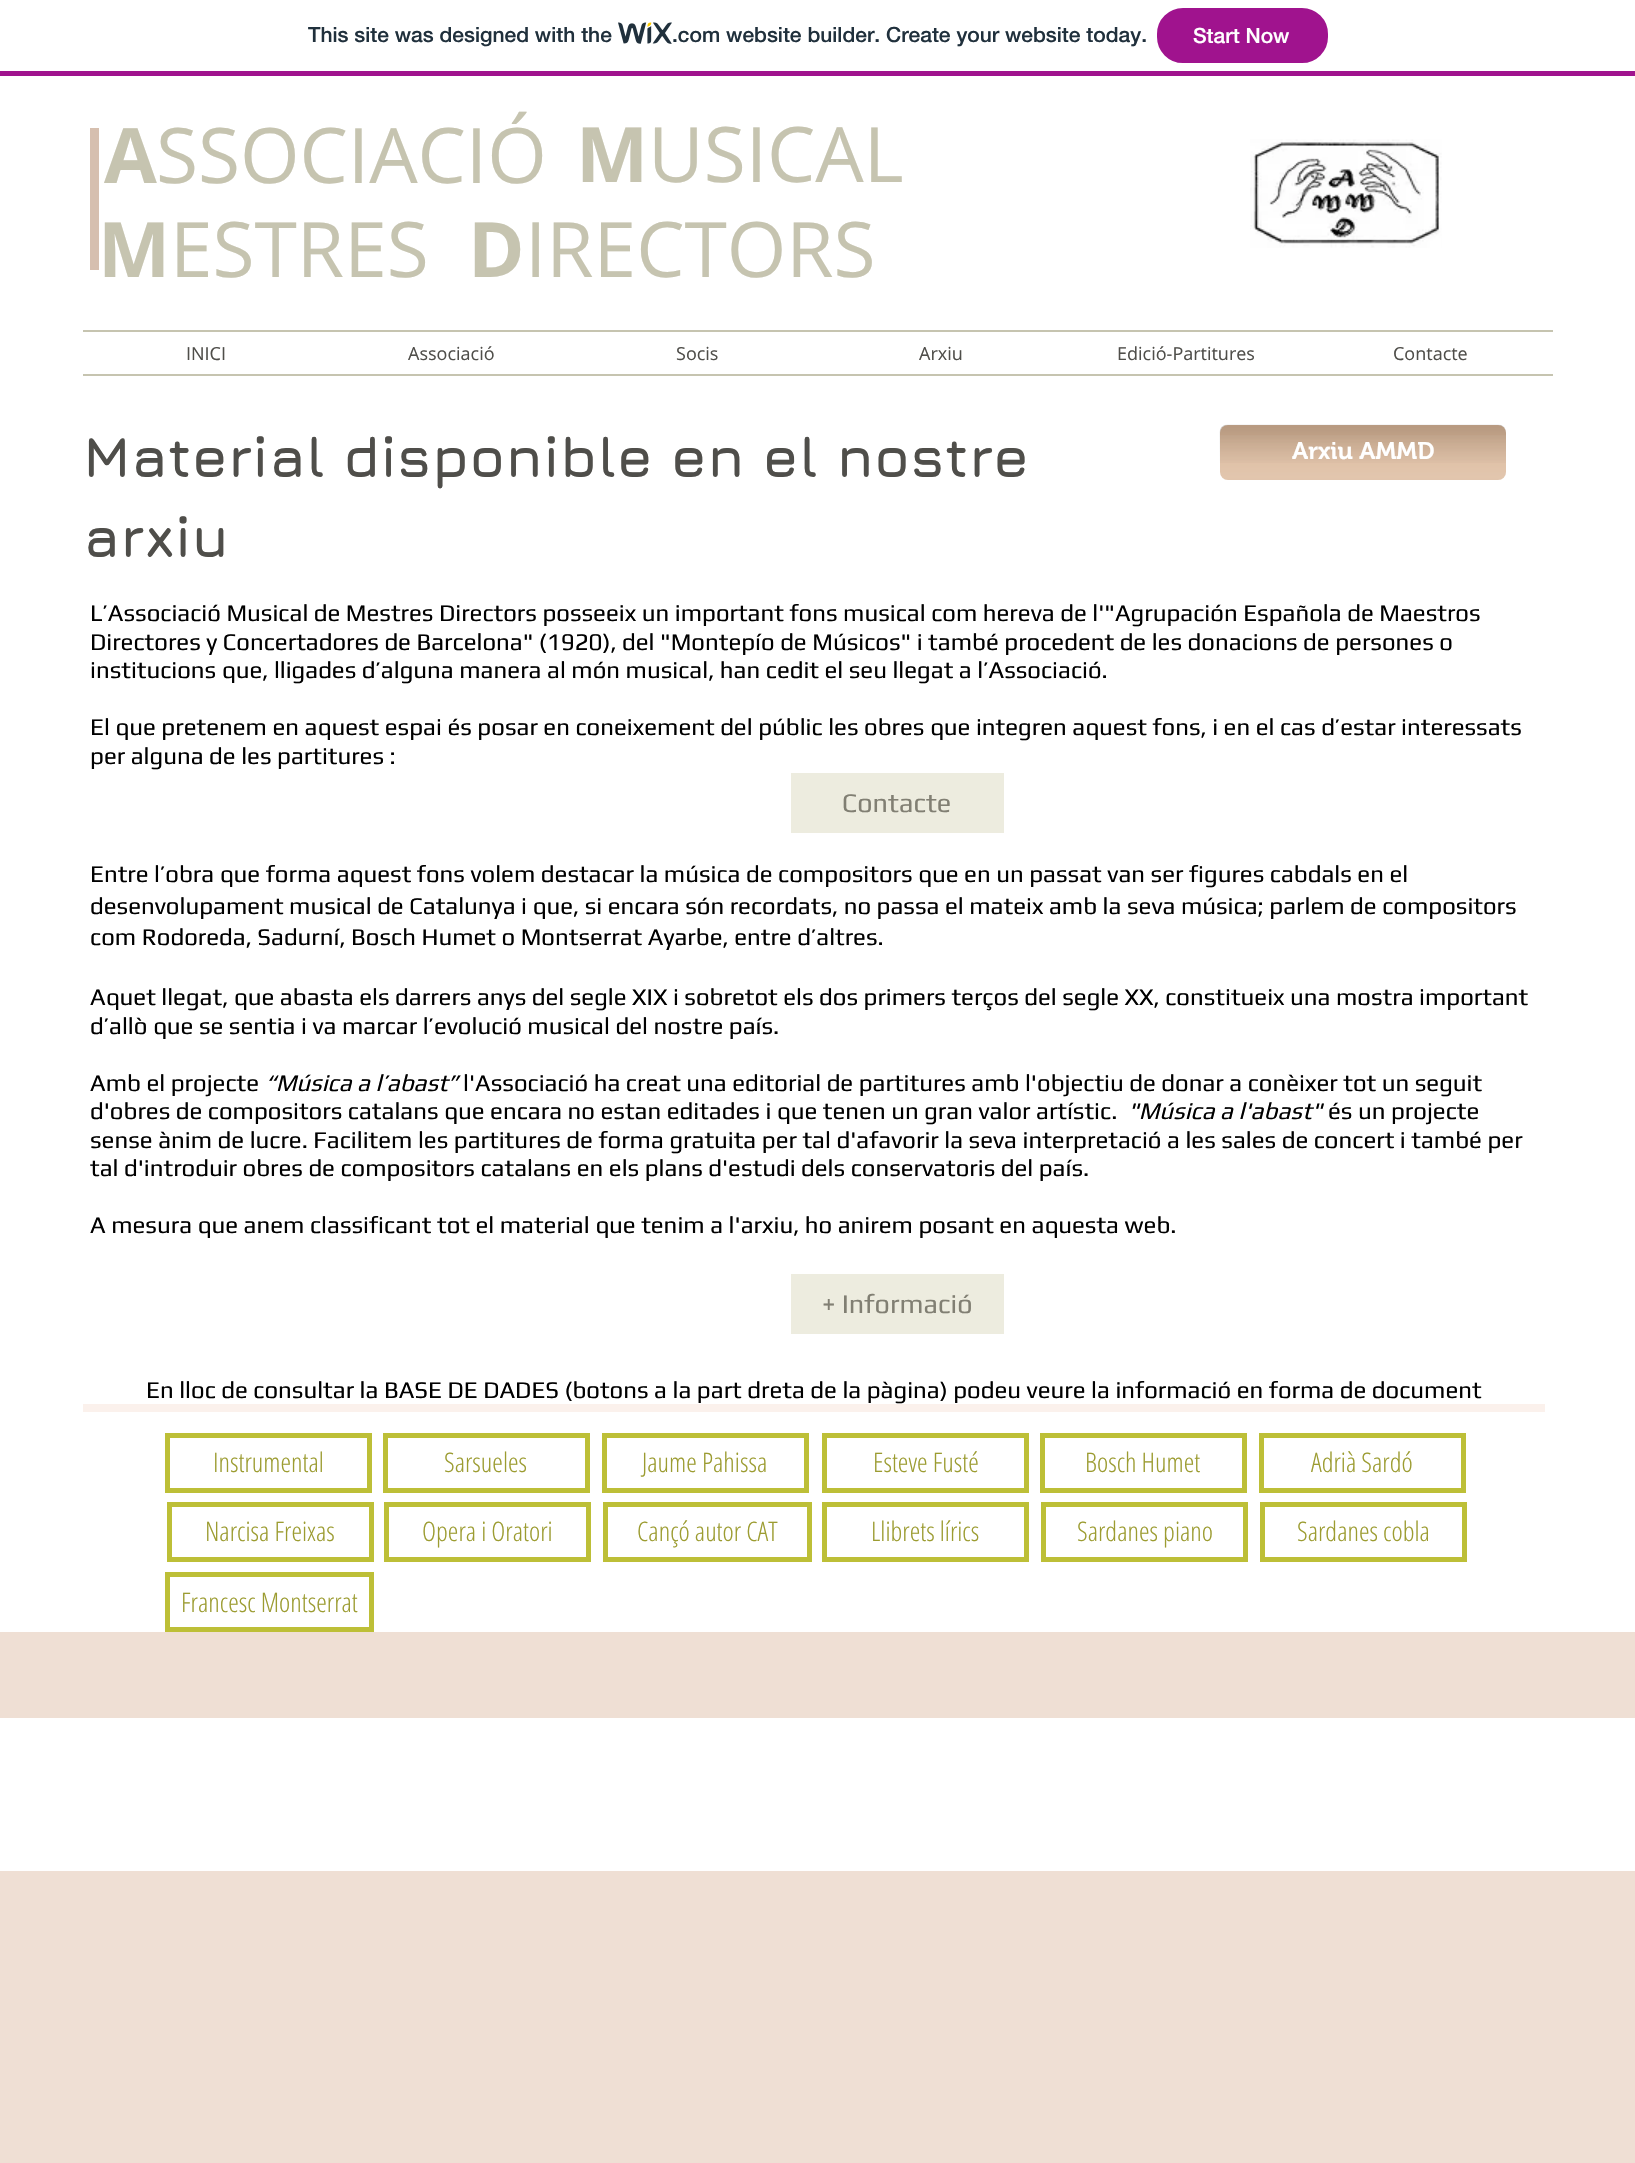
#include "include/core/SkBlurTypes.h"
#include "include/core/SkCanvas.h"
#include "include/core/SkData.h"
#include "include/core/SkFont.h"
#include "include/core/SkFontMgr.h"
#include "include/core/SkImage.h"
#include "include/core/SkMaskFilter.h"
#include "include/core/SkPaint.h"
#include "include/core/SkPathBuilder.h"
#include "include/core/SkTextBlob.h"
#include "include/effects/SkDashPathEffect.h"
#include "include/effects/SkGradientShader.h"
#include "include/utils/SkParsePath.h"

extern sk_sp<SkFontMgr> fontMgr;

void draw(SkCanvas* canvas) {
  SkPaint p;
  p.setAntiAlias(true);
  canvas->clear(SK_ColorWHITE);
  p.setColor(SkColorSetRGB(160, 19, 142));
  canvas->drawRect(SkRect::MakeLTRB(0, 71, 1635, 76), p);
  canvas->drawImageRect(SkImages::DeferredFromEncodedData(SkData::MakeFromFileName("images/1.png")), SkRect::MakeLTRB(618, 22, 672, 44), SkSamplingOptions());
  canvas->drawRoundRect(SkRect::MakeLTRB(1158, 9, 1327, 62), 25, 25, p);
  p.setStyle(SkPaint::kStroke_Style);
  p.setStrokeWidth(2);
  canvas->drawRoundRect(SkRect::MakeLTRB(1158, 9, 1327, 62), 25, 25, p);
  p.setStyle(SkPaint::kFill_Style);
  p.setColor(SkColorSetRGB(214, 191, 175));
  canvas->drawRect(SkRect::MakeLTRB(90, 128, 99, 270), p);
  canvas->drawImageRect(SkImages::DeferredFromEncodedData(SkData::MakeFromFileName("images/2.png")), SkRect::MakeLTRB(1250, 139, 1442, 248), SkSamplingOptions());
  p.setColor(SkColorSetRGB(198, 196, 176));
  canvas->drawRect(SkRect::MakeLTRB(83, 330, 1553, 332), p);
  canvas->drawRect(SkRect::MakeLTRB(83, 374, 1553, 376), p);
  p.setColor(SkColorSetRGB(219, 184, 154));
  canvas->drawRoundRect(SkRect::MakeLTRB(1220, 425, 1506, 480), 8, 8, p);
  canvas->drawImageRect(SkImages::DeferredFromEncodedData(SkData::MakeFromFileName("images/3.png")), SkRect::MakeLTRB(1219, 424, 1506, 463), SkSamplingOptions());
  canvas->drawImageRect(SkImages::DeferredFromEncodedData(SkData::MakeFromFileName("images/4.png")), SkRect::MakeLTRB(1220, 435, 1506, 480), SkSamplingOptions());
  p.setColor(SkColorSetRGB(237, 236, 223));
  canvas->drawRect(SkRect::MakeLTRB(791, 773, 1004, 833), p);
  canvas->drawRect(SkRect::MakeLTRB(791, 1274, 1004, 1334), p);
  p.setColor(SkColorSetRGB(251, 241, 236));
  canvas->drawRect(SkRect::MakeLTRB(83, 1404, 1545, 1412), p);
  p.setStyle(SkPaint::kStroke_Style);
  p.setStrokeWidth(5);
  p.setColor(SkColorSetRGB(189, 191, 55));
  canvas->drawRect(SkRect::MakeLTRB(167.5f, 1435.5f, 369.5f, 1490.5f), p);
  canvas->drawRect(SkRect::MakeLTRB(385.5f, 1435.5f, 587.5f, 1490.5f), p);
  canvas->drawRect(SkRect::MakeLTRB(604.5f, 1435.5f, 806.5f, 1490.5f), p);
  canvas->drawRect(SkRect::MakeLTRB(824.5f, 1435.5f, 1026.5f, 1490.5f), p);
  canvas->drawRect(SkRect::MakeLTRB(1042.5f, 1435.5f, 1244.5f, 1490.5f), p);
  canvas->drawRect(SkRect::MakeLTRB(1261.5f, 1435.5f, 1463.5f, 1490.5f), p);
  canvas->drawRect(SkRect::MakeLTRB(169.5f, 1504.5f, 371.5f, 1559.5f), p);
  canvas->drawRect(SkRect::MakeLTRB(386.5f, 1504.5f, 588.5f, 1559.5f), p);
  canvas->drawRect(SkRect::MakeLTRB(605.5f, 1504.5f, 809.5f, 1559.5f), p);
  canvas->drawRect(SkRect::MakeLTRB(824.5f, 1504.5f, 1026.5f, 1559.5f), p);
  canvas->drawRect(SkRect::MakeLTRB(1043.5f, 1504.5f, 1245.5f, 1559.5f), p);
  canvas->drawRect(SkRect::MakeLTRB(1262.5f, 1504.5f, 1464.5f, 1559.5f), p);
  canvas->drawRect(SkRect::MakeLTRB(167.5f, 1574.5f, 371.5f, 1629.5f), p);
  p.setStyle(SkPaint::kFill_Style);
  p.setColor(SkColorSetRGB(239, 223, 212));
  canvas->drawRect(SkRect::MakeLTRB(0, 1632, 1635, 2163), p);
  p.setColor(SK_ColorWHITE);
  canvas->drawRect(SkRect::MakeLTRB(0, 1718, 1635, 1871), p);
  SkFont font1(fontMgr->matchFamilyStyle("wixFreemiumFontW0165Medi", SkFontStyle(500, SkFontStyle::kNormal_Width, SkFontStyle::kUpright_Slant)), 21);
  font1.setSubpixel(true);
  p.setColor(SkColorSetRGB(32, 48, 60));
  canvas->drawString("This site was designed with the", 308, 42, font1, p);
  canvas->drawString(".com website builder. Create your website today.", 672, 42, font1, p);
  p.setColor(SK_ColorWHITE);
  canvas->drawString("Start Now", 1193, 43, font1, p);
  SkFont font2(fontMgr->matchFamilyStyle("Open Sans", SkFontStyle::Bold()), 76.5f);
  font2.setSubpixel(true);
  p.setColor(SkColorSetRGB(198, 196, 176));
  canvas->drawString("A", 104, 183, font2, p);
  SkFont font3(fontMgr->matchFamilyStyle("Open Sans", SkFontStyle::Normal()), 76.5f);
  font3.setSubpixel(true);
  canvas->drawString("SSOCIACIÓ", 156, 183, font3, p);
  canvas->drawString("M", 576, 182, font2, p);
  canvas->drawString("USICAL", 648, 182, font3, p);
  canvas->drawString("M", 98, 277, font2, p);
  canvas->drawString("ESTRES", 170, 277, font3, p);
  canvas->drawString("D", 468, 277, font2, p);
  canvas->drawString("IRECTORS", 525, 277, font3, p);
  SkFont font4(fontMgr->matchFamilyStyle("Open Sans", SkFontStyle::Normal()), 18);
  font4.setSubpixel(true);
  p.setColor(SkColorSetRGB(79, 78, 74));
  canvas->drawString("INICI", 186, 360, font4, p);
  canvas->drawString("Associació", 408, 360, font4, p);
  canvas->drawString("Socis", 676, 360, font4, p);
  canvas->drawString("Arxiu", 919, 360, font4, p);
  canvas->drawString("Edició-Partitures", 1117, 360, font4, p);
  canvas->drawString("Contacte", 1393, 360, font4, p);
  SkFont font5(fontMgr->matchFamilyStyle("Jura", SkFontStyle::Bold()), 57);
  font5.setSubpixel(true);
  canvas->drawString("Material disponible en el nostre", 83, 477, font5, p);
  canvas->drawString("arxiu", 83, 557, font5, p);
  SkFont font6(fontMgr->matchFamilyStyle("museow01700", SkFontStyle(600, SkFontStyle::kNormal_Width, SkFontStyle::kUpright_Slant)), 24);
  font6.setSubpixel(true);
  p.setColor(SK_ColorWHITE);
  canvas->drawString("Arxiu AMMD", 1292, 459, font6, p);
  SkFont font7(fontMgr->matchFamilyStyle("Play", SkFontStyle::Normal()), 24);
  font7.setSubpixel(true);
  p.setColor(SK_ColorBLACK);
  canvas->drawString("L’Associació Musical de Mestres Directors posseeix un important fons musical com hereva de l'\"Agrupación Española de Maestros", 90, 621, font7, p);
  canvas->drawString("Directores y Concertadores de Barcelona\" (1920), del \"Montepío de Músicos\" i també procedent de les donacions de persones o", 90, 650, font7, p);
  canvas->drawString("institucions que, lligades d’alguna manera al món musical, han cedit el seu llegat a l’Associació.", 90, 678, font7, p);
  canvas->drawString("El que pretenem en aquest espai és posar en coneixement del públic les obres que integren aquest fons, i en el cas d’estar interessats", 90, 735, font7, p);
  canvas->drawString("per alguna de les partitures :", 90, 764, font7, p);
  canvas->drawString("Entre l’obra que forma aquest fons volem destacar la música de compositors que en un passat van ser figures cabdals en el", 90, 882, font7, p);
  canvas->drawString("desenvolupament musical de Catalunya i que, si encara són recordats, no passa el mateix amb la seva música; parlem de compositors", 90, 914, font7, p);
  canvas->drawString("com Rodoreda, Sadurní, Bosch Humet o Montserrat Ayarbe, entre d’altres.", 90, 945, font7, p);
  canvas->drawString("Aquet llegat, que abasta els darrers anys del segle XIX i sobretot els dos primers terços del segle XX, constitueix una mostra important", 90, 1005, font7, p);
  canvas->drawString("d’allò que se sentia i va marcar l’evolució musical del nostre país.", 90, 1034, font7, p);
  canvas->drawString("Amb el projecte", 90, 1091, font7, p);
  SkFont font8(fontMgr->matchFamilyStyle("Play", SkFontStyle::Italic()), 24);
  font8.setSubpixel(true);
  canvas->drawString("“Música a l’abast”", 265, 1091, font8, p);
  canvas->drawString("l'Associació ha creat una editorial de partitures amb l'objectiu de donar a conèixer tot un seguit", 463, 1091, font7, p);
  canvas->drawString("d'obres de compositors catalans que encara no estan editades i que tenen un gran valor artístic.", 90, 1119, font7, p);
  canvas->drawString("\"Música a l'abast\"", 1128, 1119, font8, p);
  canvas->drawString("és un projecte", 1328, 1119, font7, p);
  canvas->drawString("sense ànim de lucre. Facilitem les partitures de forma gratuita per tal d'afavorir la seva interpretació a les sales de concert i també per", 90, 1148, font7, p);
  canvas->drawString("tal d'introduir obres de compositors catalans en els plans d'estudi dels conservatoris del país.", 90, 1176, font7, p);
  canvas->drawString("A mesura que anem classificant tot el material que tenim a l'arxiu, ho anirem posant en aquesta web.", 90, 1233, font7, p);
  SkFont font9(fontMgr->matchFamilyStyle("Play", SkFontStyle::Normal()), 27);
  font9.setSubpixel(true);
  p.setColor(SkColorSetRGB(129, 127, 115));
  canvas->drawString("Contacte", 842, 812, font9, p);
  canvas->drawString("+ Informació", 822, 1313, font9, p);
  p.setColor(SK_ColorBLACK);
  canvas->drawString("En lloc de consultar la BASE DE DADES (botons a la part dreta de la pàgina) podeu veure la informació en forma de document", 146, 1398, font7, p);
  SkFont font10(fontMgr->matchFamilyStyle("Open Sans Condensed", SkFontStyle(300, SkFontStyle::kNormal_Width, SkFontStyle::kUpright_Slant)), 27);
  font10.setSubpixel(true);
  p.setColor(SkColorSetRGB(156, 156, 49));
  canvas->drawString("Instrumental", 213, 1472, font10, p);
  canvas->drawString("Sarsueles", 444, 1472, font10, p);
  canvas->drawString("Jaume Pahissa", 642, 1472, font10, p);
  canvas->drawString("Esteve Fusté", 873, 1472, font10, p);
  canvas->drawString("Bosch Humet", 1085, 1472, font10, p);
  canvas->drawString("Adrià Sardó", 1311, 1472, font10, p);
  canvas->drawString("Narcisa Freixas", 205, 1541, font10, p);
  canvas->drawString("Opera i Oratori", 422, 1541, font10, p);
  canvas->drawString("Cançó autor CAT", 637, 1541, font10, p);
  canvas->drawString("Llibrets lírics", 871, 1541, font10, p);
  canvas->drawString("Sardanes piano", 1077, 1541, font10, p);
  canvas->drawString("Sardanes cobla", 1297, 1541, font10, p);
  canvas->drawString("Francesc Montserrat", 181, 1612, font10, p);
}
